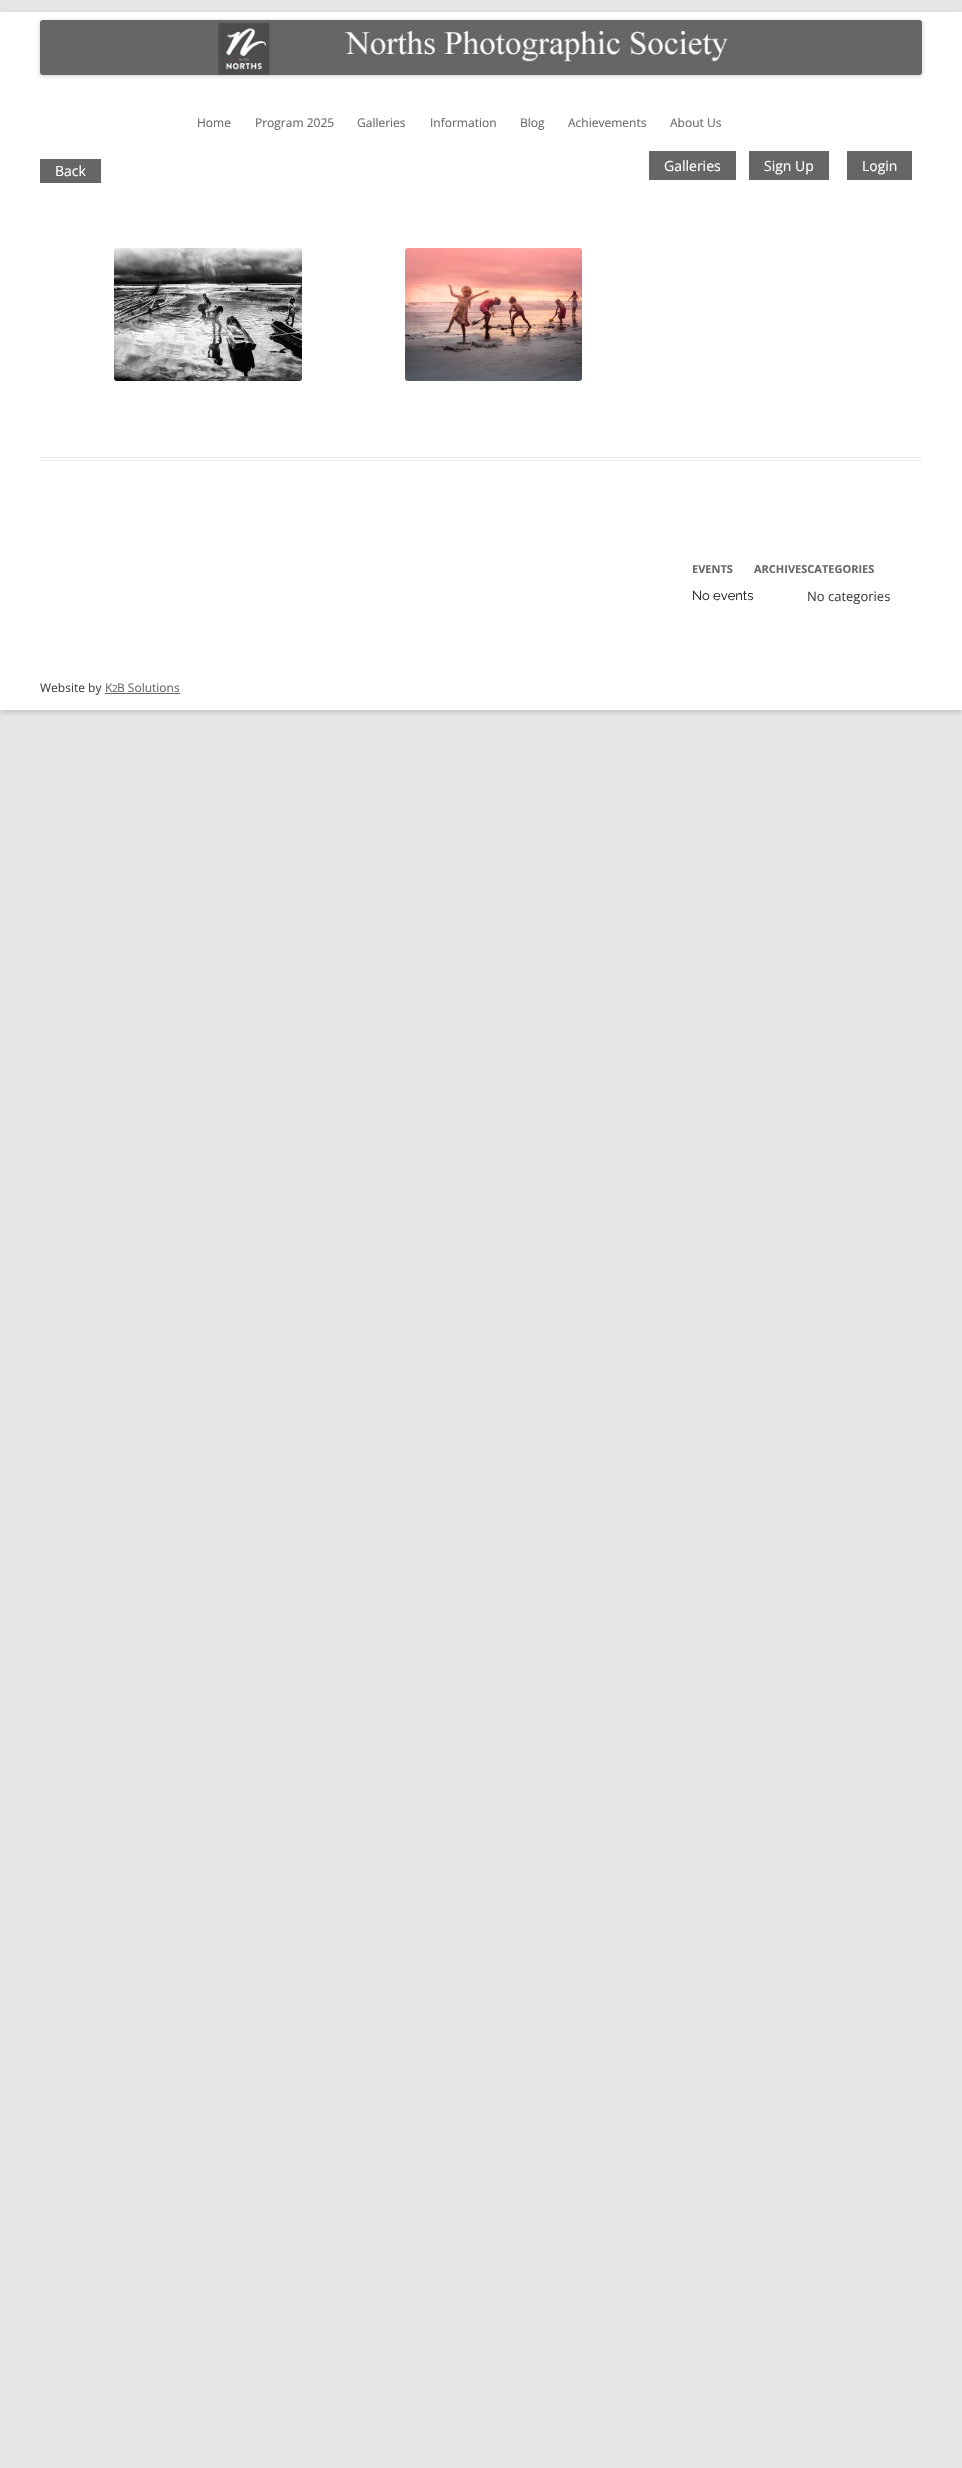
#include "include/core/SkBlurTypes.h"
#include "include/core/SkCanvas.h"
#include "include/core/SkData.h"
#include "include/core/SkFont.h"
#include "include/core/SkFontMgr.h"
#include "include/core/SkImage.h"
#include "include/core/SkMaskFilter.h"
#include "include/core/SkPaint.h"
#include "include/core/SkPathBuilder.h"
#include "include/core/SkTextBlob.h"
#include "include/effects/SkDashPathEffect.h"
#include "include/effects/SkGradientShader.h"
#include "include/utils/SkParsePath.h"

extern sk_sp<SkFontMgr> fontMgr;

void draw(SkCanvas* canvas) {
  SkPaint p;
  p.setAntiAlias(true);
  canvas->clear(SkColorSetRGB(230, 230, 230));
  p.setColor(SkColorSetARGB(77, 100, 100, 100));
  p.setMaskFilter(SkMaskFilter::MakeBlur(kNormal_SkBlurStyle, 3));
  canvas->drawRect(SkRect::MakeLTRB(0, 14, 962, 712), p);
  p.setMaskFilter(nullptr);
  p.setColor(SK_ColorWHITE);
  canvas->drawRect(SkRect::MakeLTRB(0, 12, 962, 710), p);
  p.setColor(SkColorSetARGB(51, 0, 0, 0));
  p.setMaskFilter(SkMaskFilter::MakeBlur(kNormal_SkBlurStyle, 2));
  canvas->drawRoundRect(SkRect::MakeLTRB(40, 21, 922, 76), 3, 3, p);
  p.setMaskFilter(nullptr);
  canvas->drawImageRect(SkImages::DeferredFromEncodedData(SkData::MakeFromFileName("images/1.png")), SkRect::MakeLTRB(40, 20, 922, 75), SkSamplingOptions());
  p.setColor(SkColorSetRGB(102, 102, 102));
  canvas->drawRect(SkRect::MakeLTRB(40, 159, 101, 183), p);
  canvas->drawRect(SkRect::MakeLTRB(649, 151, 736, 180), p);
  canvas->drawRect(SkRect::MakeLTRB(749, 151, 829, 180), p);
  canvas->drawRect(SkRect::MakeLTRB(847, 151, 912, 180), p);
  p.setColor(SkColorSetRGB(237, 237, 237));
  canvas->drawRect(SkRect::MakeLTRB(40, 457, 922, 458), p);
  canvas->drawRect(SkRect::MakeLTRB(40, 460, 922, 461), p);
  canvas->drawImageRect(SkImages::DeferredFromEncodedData(SkData::MakeFromFileName("images/2.png")), SkRect::MakeLTRB(114, 248, 302, 381), SkSamplingOptions());
  canvas->drawImageRect(SkImages::DeferredFromEncodedData(SkData::MakeFromFileName("images/3.png")), SkRect::MakeLTRB(405, 248, 582, 381), SkSamplingOptions());
  p.setColor(SkColorSetRGB(104, 104, 104));
  canvas->drawRect(SkRect::MakeLTRB(105, 693, 180, 694), p);
  SkFont font1(fontMgr->matchFamilyStyle("Open Sans", SkFontStyle::Normal()), 12);
  font1.setSubpixel(true);
  canvas->drawString("Home", 197, 127, font1, p);
  canvas->drawString("Program 2025", 255, 127, font1, p);
  canvas->drawString("Galleries", 357, 127, font1, p);
  canvas->drawString("Information", 430, 127, font1, p);
  canvas->drawString("Blog", 520, 127, font1, p);
  canvas->drawString("Achievements", 568, 127, font1, p);
  canvas->drawString("About Us", 670, 127, font1, p);
  SkFont font2(fontMgr->matchFamilyStyle("Open Sans", SkFontStyle::Normal()), 14);
  font2.setSubpixel(true);
  p.setColor(SK_ColorWHITE);
  canvas->drawString("Back", 55, 176, font2, p);
  canvas->drawString("Galleries", 664, 171, font2, p);
  canvas->drawString("Sign Up", 764, 171, font2, p);
  canvas->drawString("Login", 862, 171, font2, p);
  SkFont font3(fontMgr->matchFamilyStyle("Open Sans", SkFontStyle::Bold()), 11);
  font3.setSubpixel(true);
  p.setColor(SkColorSetRGB(104, 104, 104));
  canvas->drawString("EVENTS", 692, 573, font3, p);
  SkFont font4(fontMgr->matchFamilyStyle("Raleway", SkFontStyle::Normal()), 13);
  font4.setSubpixel(true);
  p.setColor(SkColorSetRGB(33, 33, 33));
  canvas->drawString("No events", 692, 600, font4, p);
  p.setColor(SkColorSetRGB(104, 104, 104));
  canvas->drawString("ARCHIVESCATEGORIES", 754, 573, font3, p);
  SkFont font5(fontMgr->matchFamilyStyle("Open Sans", SkFontStyle::Normal()), 13);
  font5.setSubpixel(true);
  p.setColor(SkColorSetRGB(68, 68, 68));
  canvas->drawString("No categories", 807, 601, font5, p);
  canvas->drawString("Website by", 40, 692, font1, p);
  p.setColor(SkColorSetRGB(104, 104, 104));
  canvas->drawString("K", 105, 692, font1, p);
  SkFont font6(fontMgr->matchFamilyStyle("Open Sans", SkFontStyle::Normal()), 10);
  font6.setSubpixel(true);
  canvas->drawString("2", 112, 692, font6, p);
  canvas->drawString("B Solutions", 117, 692, font1, p);
}
